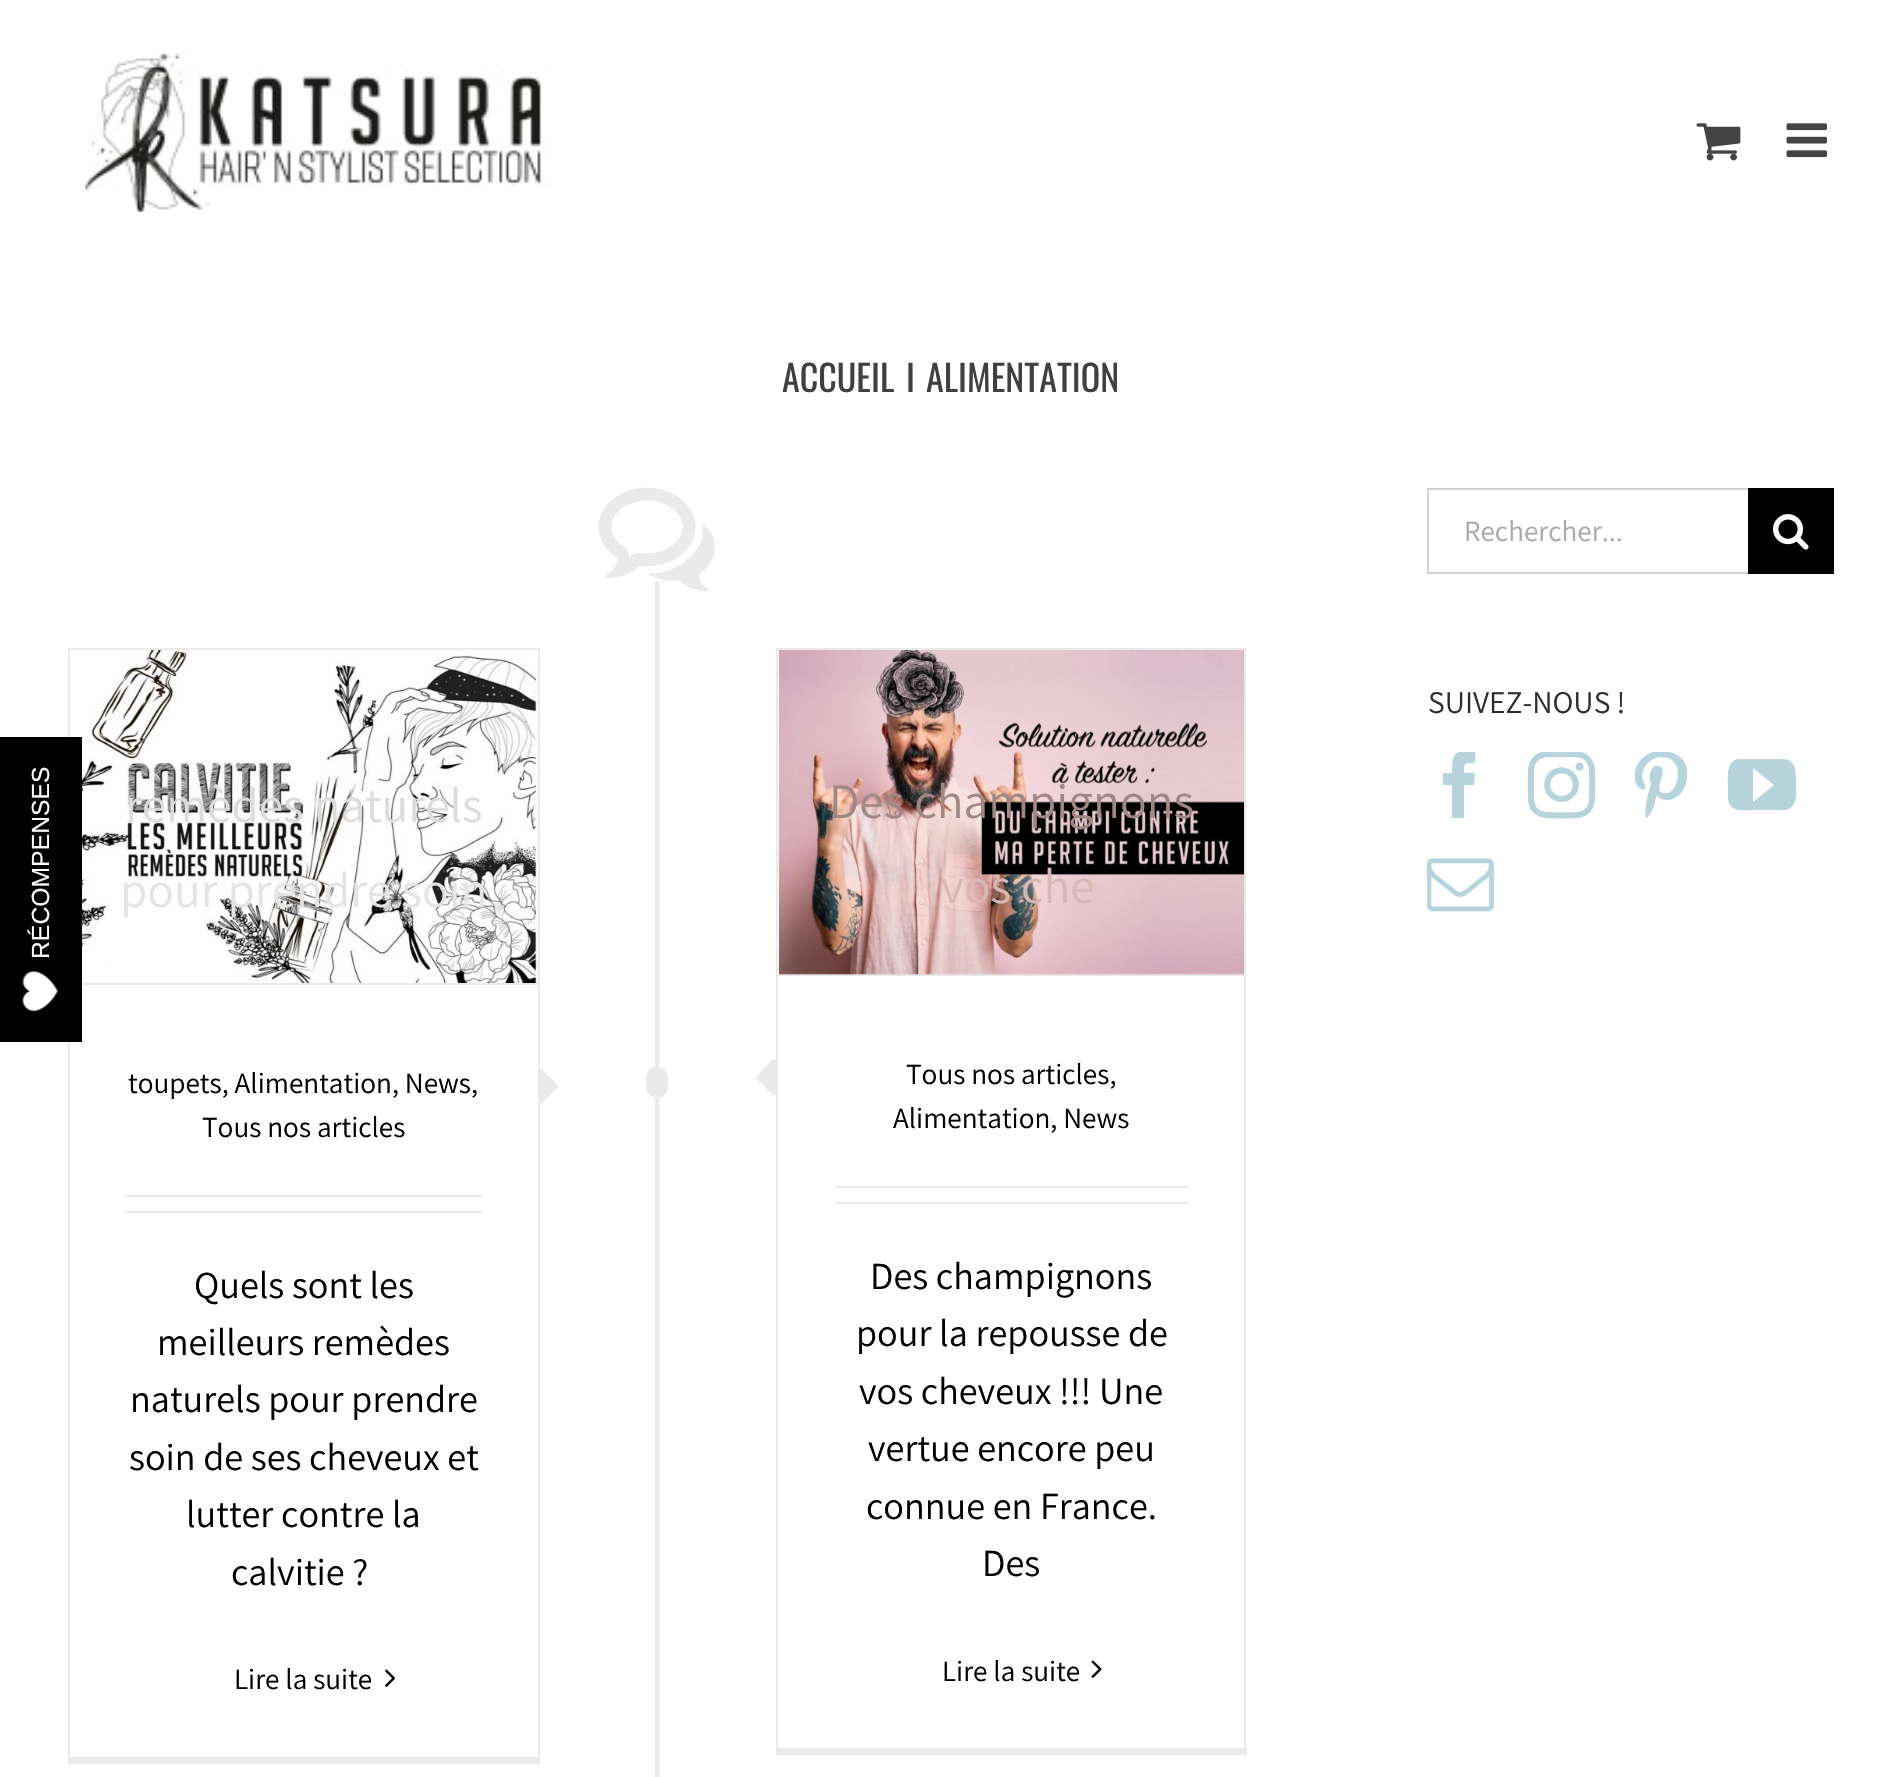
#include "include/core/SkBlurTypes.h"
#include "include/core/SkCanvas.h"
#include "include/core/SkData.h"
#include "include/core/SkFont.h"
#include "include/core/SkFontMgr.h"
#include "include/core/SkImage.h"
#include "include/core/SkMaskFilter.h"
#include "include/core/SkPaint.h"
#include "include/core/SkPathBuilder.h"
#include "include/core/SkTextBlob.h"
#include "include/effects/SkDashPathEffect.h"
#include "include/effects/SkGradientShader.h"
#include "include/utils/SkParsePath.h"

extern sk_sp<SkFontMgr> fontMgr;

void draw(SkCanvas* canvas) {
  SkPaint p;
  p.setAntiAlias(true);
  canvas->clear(SK_ColorWHITE);
  p.setColor(SkColorSetRGB(234, 234, 234));
  canvas->drawRect(SkRect::MakeLTRB(68, 648, 540, 650), p);
  canvas->drawRect(SkRect::MakeLTRB(538, 648, 540, 1764), p);
  canvas->drawRect(SkRect::MakeLTRB(68, 1757, 540, 1764), p);
  canvas->drawRect(SkRect::MakeLTRB(68, 648, 70, 1764), p);
  canvas->drawImageRect(SkImages::DeferredFromEncodedData(SkData::MakeFromFileName("images/10.png")), SkRect::MakeLTRB(70, 650, 538, 983), SkSamplingOptions());
  p.setColor(SK_ColorBLACK);
  canvas->drawRect(SkRect::MakeLTRB(0, 737, 82, 1042), p);
  canvas->drawImageRect(SkImages::DeferredFromEncodedData(SkData::MakeFromFileName("images/1.png")), SkRect::MakeLTRB(22, 970, 59, 1012), SkSamplingOptions());
  canvas->drawImageRect(SkImages::DeferredFromEncodedData(SkData::MakeFromFileName("images/2.png")), SkRect::MakeLTRB(85, 48, 553, 213), SkSamplingOptions());
  canvas->drawImageRect(SkImages::DeferredFromEncodedData(SkData::MakeFromFileName("images/3.png")), SkRect::MakeLTRB(1696, 123, 1741, 161), SkSamplingOptions());
  canvas->drawImageRect(SkImages::DeferredFromEncodedData(SkData::MakeFromFileName("images/4.png")), SkRect::MakeLTRB(1786, 123, 1827, 158), SkSamplingOptions());
  p.setColor(SkColorSetRGB(210, 210, 210));
  canvas->drawRect(SkRect::MakeLTRB(1427, 488, 1748, 490), p);
  canvas->drawRect(SkRect::MakeLTRB(1427, 572, 1748, 574), p);
  canvas->drawRect(SkRect::MakeLTRB(1427, 488, 1429, 574), p);
  p.setColor(SK_ColorBLACK);
  canvas->drawRect(SkRect::MakeLTRB(1748, 488, 1834, 574), p);
  canvas->drawImageRect(SkImages::DeferredFromEncodedData(SkData::MakeFromFileName("images/5.png")), SkRect::MakeLTRB(1773, 514, 1809, 550), SkSamplingOptions());
  canvas->save();
  canvas->clipRect(SkRect::MakeLTRB(1427, 752, 1834, 950));
  p.setColor(SkColorSetRGB(183, 212, 220));
  canvas->drawPath(SkPathBuilder().moveTo(1464, 818).lineTo(1452, 818).lineTo(1452, 785).lineTo(1443, 785).lineTo(1443, 773).lineTo(1452, 773).cubicTo(1452, 752, 1454, 751, 1475, 751).lineTo(1475, 763).cubicTo(1464, 763, 1464, 762, 1464, 773).lineTo(1475, 773).lineTo(1474, 785).lineTo(1464, 785).close().detach(), p);
  canvas->restore();
  canvas->drawImageRect(SkImages::DeferredFromEncodedData(SkData::MakeFromFileName("images/6.png")), SkRect::MakeLTRB(1527, 752, 1596, 819), SkSamplingOptions());
  canvas->drawImageRect(SkImages::DeferredFromEncodedData(SkData::MakeFromFileName("images/7.png")), SkRect::MakeLTRB(1634, 752, 1688, 819), SkSamplingOptions());
  canvas->drawPath(SkPathBuilder().moveTo(1783, 759).lineTo(1739, 759).cubicTo(1726, 761, 1728, 775, 1728, 785).lineTo(1728, 799).cubicTo(1729, 813, 1745, 810, 1755, 810).lineTo(1784, 810).cubicTo(1798, 809, 1796, 794, 1796, 785).cubicTo(1796, 775, 1797, 759, 1783, 759).close().moveTo(1753, 802).lineTo(1753, 768).lineTo(1774, 785).close().detach(), p);
  canvas->drawImageRect(SkImages::DeferredFromEncodedData(SkData::MakeFromFileName("images/8.png")), SkRect::MakeLTRB(1427, 858, 1494, 912), SkSamplingOptions());
  canvas->drawImageRect(SkImages::DeferredFromEncodedData(SkData::MakeFromFileName("images/9.png")), SkRect::MakeLTRB(598, 487, 715, 591), SkSamplingOptions());
  p.setColor(SkColorSetRGB(234, 234, 234));
  canvas->drawRect(SkRect::MakeLTRB(82, 983, 538, 985), p);
  canvas->drawRect(SkRect::MakeLTRB(126, 1195, 482, 1197), p);
  canvas->drawRect(SkRect::MakeLTRB(126, 1211, 482, 1213), p);
  canvas->drawImageRect(SkImages::DeferredFromEncodedData(SkData::MakeFromFileName("images/11.png")), SkRect::MakeLTRB(537, 1068, 558, 1104), SkSamplingOptions());
  canvas->drawRect(SkRect::MakeLTRB(655, 581, 659, 1777), p);
  canvas->drawCircle(657, 1087, 11, p);
  canvas->drawImageRect(SkImages::DeferredFromEncodedData(SkData::MakeFromFileName("images/12.png")), SkRect::MakeLTRB(385, 1669, 396, 1687), SkSamplingOptions());
  canvas->drawRect(SkRect::MakeLTRB(776, 648, 1247, 650), p);
  canvas->drawRect(SkRect::MakeLTRB(1244, 648, 1246, 1755), p);
  canvas->drawRect(SkRect::MakeLTRB(776, 1748, 1247, 1755), p);
  canvas->drawRect(SkRect::MakeLTRB(776, 648, 778, 1755), p);
  canvas->drawRect(SkRect::MakeLTRB(779, 974, 1244, 976), p);
  canvas->drawImageRect(SkImages::DeferredFromEncodedData(SkData::MakeFromFileName("images/13.png")), SkRect::MakeLTRB(779, 650, 1244, 975), SkSamplingOptions());
  canvas->drawCircle(657, 1078, 11, p);
  canvas->drawImageRect(SkImages::DeferredFromEncodedData(SkData::MakeFromFileName("images/14.png")), SkRect::MakeLTRB(756, 1059, 776, 1095), SkSamplingOptions());
  canvas->drawRect(SkRect::MakeLTRB(835, 1186, 1188, 1188), p);
  canvas->drawRect(SkRect::MakeLTRB(835, 1202, 1188, 1204), p);
  canvas->drawImageRect(SkImages::DeferredFromEncodedData(SkData::MakeFromFileName("images/15.png")), SkRect::MakeLTRB(1091, 1660, 1102, 1678), SkSamplingOptions());
  SkFont font1(fontMgr->matchFamilyStyle("Liberation Sans", SkFontStyle::Normal()), 24.75f);
  font1.setSubpixel(true);
  p.setColor(SK_ColorWHITE);
  canvas->save();
  canvas->rotate(-90, 49, 959);
  canvas->drawString("RÉCOMPENSES", 49, 959, font1, p);
  canvas->restore();
  SkFont font2(fontMgr->matchFamilyStyle("Oswald", SkFontStyle::Normal()), 36);
  font2.setSubpixel(true);
  p.setColor(SkColorSetRGB(64, 64, 64));
  canvas->drawString("ACCUEIL", 782, 392, font2, p);
  canvas->drawString("I", 906, 392, font2, p);
  canvas->drawString("ALIMENTATION", 926, 392, font2, p);
  SkFont font3(fontMgr->matchFamilyStyle("Assistant", SkFontStyle::Normal()), 29.25f);
  font3.setSubpixel(true);
  p.setColor(SkColorSetRGB(170, 169, 169));
  canvas->drawString("Rechercher...", 1464, 541, font3, p);
  SkFont font4(fontMgr->matchFamilyStyle("Assistant", SkFontStyle::Normal()), 31.5f);
  font4.setSubpixel(true);
  p.setColor(SkColorSetRGB(43, 46, 50));
  canvas->drawString("SUIVEZ-NOUS !", 1428, 713, font4, p);
  SkFont font5(fontMgr->matchFamilyStyle("Assistant", SkFontStyle::Normal()), 49.5f);
  font5.setSubpixel(true);
  p.setColor(SkColorSetRGB(220, 220, 220));
  canvas->drawString("remèdes naturels", 125, 822, font5, p);
  p.setColor(SkColorSetRGB(228, 228, 228));
  canvas->drawString("pour prendre soin", 120, 907, font5, p);
  p.setColor(SK_ColorBLACK);
  canvas->drawString("toupets, Alimentation, News,", 128, 1093, font3, p);
  canvas->drawString("Tous nos articles", 202, 1137, font3, p);
  SkFont font6(fontMgr->matchFamilyStyle("Assistant", SkFontStyle::Normal()), 38.25f);
  font6.setSubpixel(true);
  canvas->drawString("Quels sont les", 194, 1298, font6, p);
  canvas->drawString("meilleurs remèdes", 157, 1355, font6, p);
  canvas->drawString("naturels pour prendre", 130, 1412, font6, p);
  canvas->drawString("soin de ses cheveux et", 129, 1470, font6, p);
  canvas->drawString("lutter contre la", 186, 1527, font6, p);
  canvas->drawString("calvitie ?", 231, 1585, font6, p);
  canvas->drawString("Lire la suite", 234, 1689, font3, p);
  p.setColor(SkColorSetRGB(159, 135, 133));
  canvas->drawString("Des champignons", 829, 818, font5, p);
  p.setColor(SkColorSetRGB(216, 183, 183));
  canvas->drawString("vos che", 941, 903, font5, p);
  p.setColor(SK_ColorBLACK);
  canvas->drawString("Tous nos articles,", 906, 1084, font3, p);
  canvas->drawString("Alimentation, News", 893, 1128, font3, p);
  canvas->drawString("Des champignons", 870, 1289, font6, p);
  canvas->drawString("pour la repousse de", 856, 1346, font6, p);
  canvas->drawString("vos cheveux !!! Une", 859, 1404, font6, p);
  canvas->drawString("vertue encore peu", 868, 1461, font6, p);
  canvas->drawString("connue en France.", 866, 1519, font6, p);
  canvas->drawString("Des", 982, 1576, font6, p);
  canvas->drawString("Lire la suite", 942, 1681, font3, p);
}
